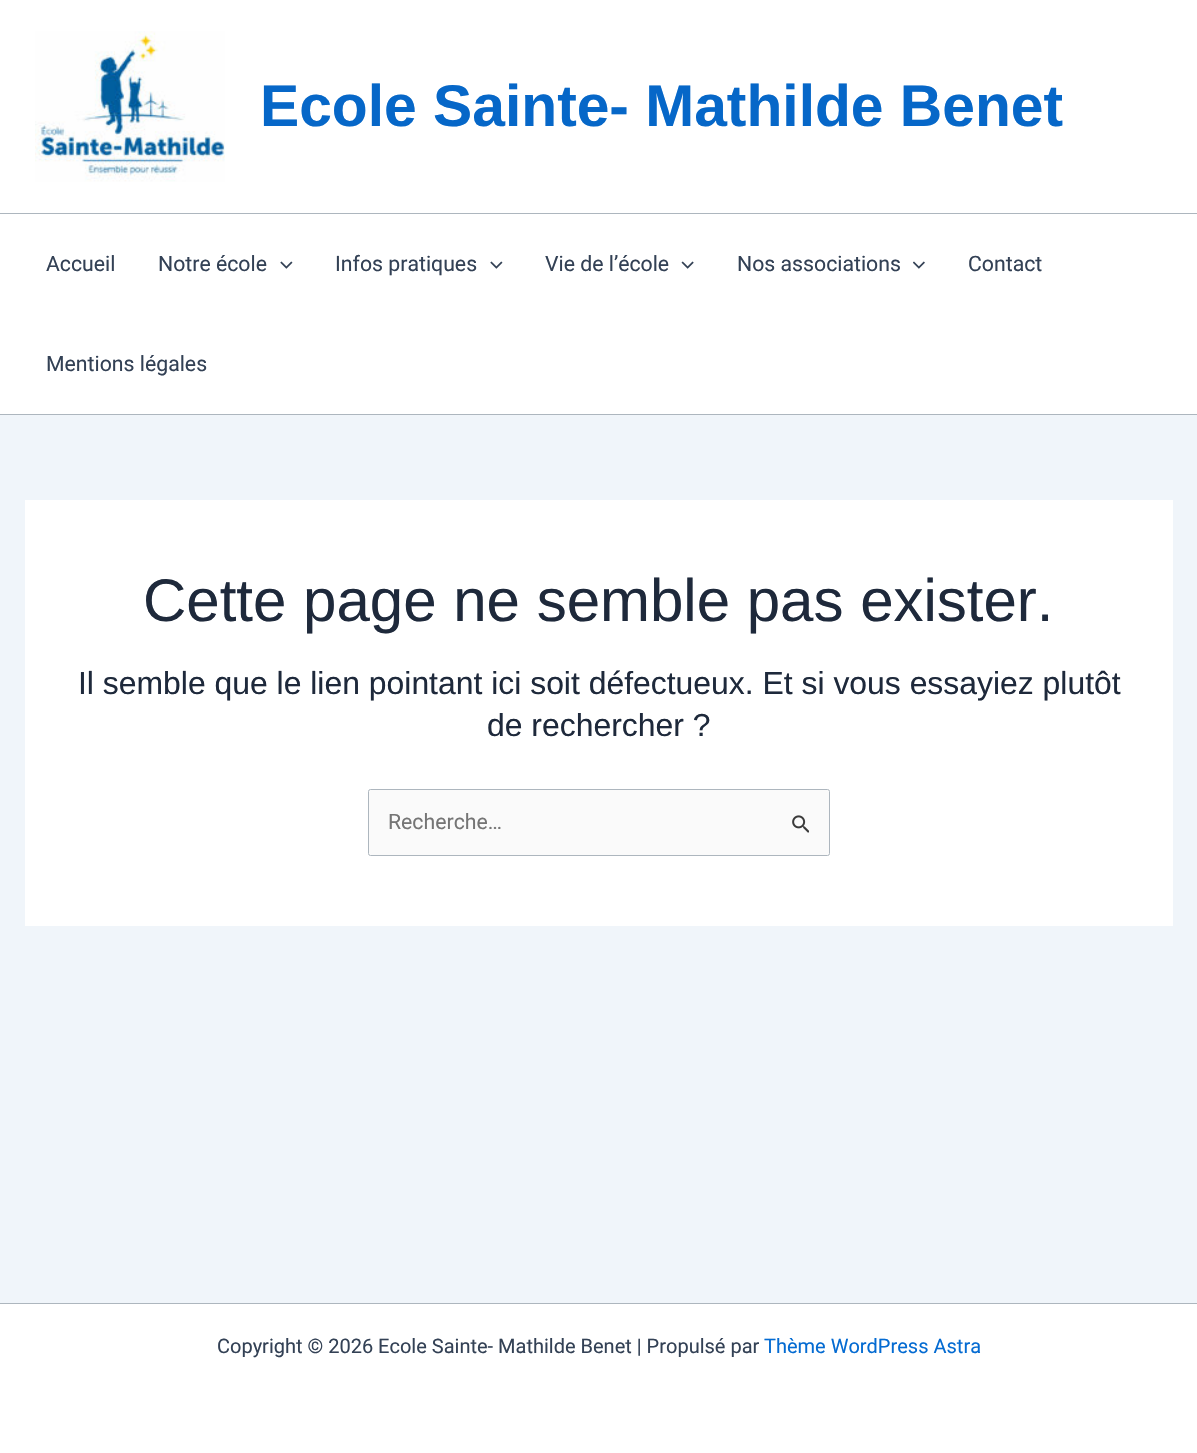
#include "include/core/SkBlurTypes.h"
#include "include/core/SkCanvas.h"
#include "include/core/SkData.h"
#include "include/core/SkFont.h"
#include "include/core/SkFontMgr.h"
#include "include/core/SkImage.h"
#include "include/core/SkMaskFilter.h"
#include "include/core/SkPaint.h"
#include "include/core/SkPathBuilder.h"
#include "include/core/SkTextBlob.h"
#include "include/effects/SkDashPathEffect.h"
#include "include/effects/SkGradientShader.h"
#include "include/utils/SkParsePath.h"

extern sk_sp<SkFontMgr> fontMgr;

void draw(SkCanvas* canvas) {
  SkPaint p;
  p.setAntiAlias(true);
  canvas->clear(SkColorSetRGB(240, 245, 250));
  p.setColor(SK_ColorWHITE);
  canvas->drawRect(SkRect::MakeLTRB(0, 0, 1197, 213), p);
  p.setColor(SkColorSetRGB(173, 182, 190));
  canvas->drawRect(SkRect::MakeLTRB(0, 213, 1197, 214), p);
  canvas->drawImageRect(SkImages::DeferredFromEncodedData(SkData::MakeFromFileName("images/1.png")), SkRect::MakeLTRB(35, 31, 225, 182), SkSamplingOptions());
  p.setColor(SK_ColorWHITE);
  canvas->drawRect(SkRect::MakeLTRB(0, 214, 1197, 414), p);
  p.setColor(SkColorSetRGB(173, 182, 190));
  canvas->drawRect(SkRect::MakeLTRB(0, 414, 1197, 415), p);
  canvas->drawImageRect(SkImages::DeferredFromEncodedData(SkData::MakeFromFileName("images/2.png")), SkRect::MakeLTRB(280, 261, 293, 269), SkSamplingOptions());
  canvas->drawImageRect(SkImages::DeferredFromEncodedData(SkData::MakeFromFileName("images/2.png")), SkRect::MakeLTRB(490, 261, 503, 269), SkSamplingOptions());
  canvas->drawImageRect(SkImages::DeferredFromEncodedData(SkData::MakeFromFileName("images/3.png")), SkRect::MakeLTRB(681, 261, 694, 269), SkSamplingOptions());
  canvas->drawImageRect(SkImages::DeferredFromEncodedData(SkData::MakeFromFileName("images/4.png")), SkRect::MakeLTRB(913, 261, 925, 269), SkSamplingOptions());
  p.setColor(SK_ColorWHITE);
  canvas->drawRect(SkRect::MakeLTRB(25, 500, 1173, 926), p);
  p.setColor(SkColorSetRGB(250, 250, 250));
  canvas->drawRoundRect(SkRect::MakeLTRB(368.5f, 789.5f, 829.5f, 855.5f), 2, 2, p);
  p.setStyle(SkPaint::kStroke_Style);
  p.setStrokeWidth(1);
  p.setColor(SkColorSetRGB(173, 182, 190));
  canvas->drawRoundRect(SkRect::MakeLTRB(368.5f, 789.5f, 829.5f, 855.5f), 2, 2, p);
  canvas->drawImageRect(SkImages::DeferredFromEncodedData(SkData::MakeFromFileName("images/5.png")), SkRect::MakeLTRB(792, 815, 809, 833), SkSamplingOptions());
  p.setStyle(SkPaint::kFill_Style);
  p.setColor(SK_ColorWHITE);
  canvas->drawRect(SkRect::MakeLTRB(0, 1304, 1197, 1453), p);
  p.setColor(SkColorSetRGB(173, 182, 190));
  canvas->drawRect(SkRect::MakeLTRB(0, 1303, 1197, 1304), p);
  SkFont font1(fontMgr->matchFamilyStyle("Liberation Sans", SkFontStyle::Bold()), 58.75f);
  font1.setSubpixel(true);
  p.setColor(SkColorSetRGB(6, 103, 200));
  canvas->drawString("Ecole Sainte- Mathilde Benet", 260, 126, font1, p);
  SkFont font2(fontMgr->matchFamilyStyle("Roboto", SkFontStyle::Normal()), 21.25f);
  font2.setSubpixel(true);
  p.setColor(SkColorSetRGB(51, 65, 85));
  canvas->drawString("Accueil", 46, 271, font2, p);
  canvas->drawString("Notre école", 158, 271, font2, p);
  canvas->drawString("Infos pratiques", 335, 271, font2, p);
  canvas->drawString("Vie de l’école", 545, 271, font2, p);
  canvas->drawString("Nos associations", 737, 271, font2, p);
  canvas->drawString("Contact", 968, 271, font2, p);
  canvas->drawString("Mentions légales", 46, 371, font2, p);
  SkFont font3(fontMgr->matchFamilyStyle("Liberation Sans", SkFontStyle::Normal()), 60);
  font3.setSubpixel(true);
  p.setColor(SkColorSetRGB(30, 41, 59));
  canvas->drawString("Cette page ne semble pas exister.", 143, 621, font3, p);
  SkFont font4(fontMgr->matchFamilyStyle("Liberation Sans", SkFontStyle::Normal()), 31.9f);
  font4.setSubpixel(true);
  canvas->drawString("Il semble que le lien pointant ici soit défectueux. Et si vous essayiez plutôt", 78, 694, font4, p);
  canvas->drawString("de rechercher ?", 487, 736, font4, p);
  p.setColor(SkColorSetRGB(117, 117, 117));
  canvas->drawString("Recherche…", 388, 829, font2, p);
  SkFont font5(fontMgr->matchFamilyStyle("Roboto", SkFontStyle::Normal()), 20);
  font5.setSubpixel(true);
  p.setColor(SkColorSetRGB(51, 65, 85));
  canvas->drawString("Copyright © 2026 Ecole Sainte- Mathilde Benet | Propulsé par", 217, 1353, font5, p);
  p.setColor(SkColorSetRGB(4, 107, 210));
  canvas->drawString("Thème WordPress Astra", 764, 1353, font5, p);
}
